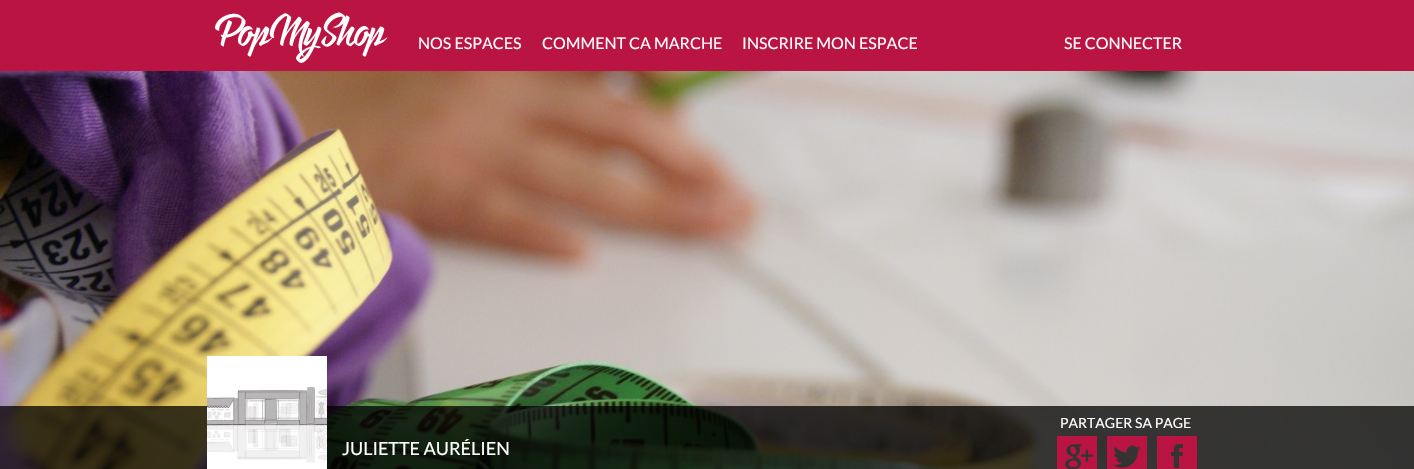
#include "include/core/SkBlurTypes.h"
#include "include/core/SkCanvas.h"
#include "include/core/SkData.h"
#include "include/core/SkFont.h"
#include "include/core/SkFontMgr.h"
#include "include/core/SkImage.h"
#include "include/core/SkMaskFilter.h"
#include "include/core/SkPaint.h"
#include "include/core/SkPathBuilder.h"
#include "include/core/SkTextBlob.h"
#include "include/effects/SkDashPathEffect.h"
#include "include/effects/SkGradientShader.h"
#include "include/utils/SkParsePath.h"

extern sk_sp<SkFontMgr> fontMgr;

void draw(SkCanvas* canvas) {
  SkPaint p;
  p.setAntiAlias(true);
  canvas->clear(SkColorSetRGB(186, 20, 67));
  canvas->drawImageRect(SkImages::DeferredFromEncodedData(SkData::MakeFromFileName("images/1.png")), SkRect::MakeLTRB(215, 12, 388, 63), SkSamplingOptions());
  canvas->drawImageRect(SkImages::DeferredFromEncodedData(SkData::MakeFromFileName("images/2.png")), SkRect::MakeLTRB(0, 71, 1414, 469), SkSamplingOptions());
  p.setColor(SkColorSetARGB(191, 0, 0, 0));
  canvas->drawRect(SkRect::MakeLTRB(0, 406, 1414, 469), p);
  canvas->drawImageRect(SkImages::DeferredFromEncodedData(SkData::MakeFromFileName("images/3.png")), SkRect::MakeLTRB(207, 356, 327, 469), SkSamplingOptions());
  canvas->drawImageRect(SkImages::DeferredFromEncodedData(SkData::MakeFromFileName("images/4.png")), SkRect::MakeLTRB(1057, 436, 1097, 469), SkSamplingOptions());
  canvas->drawImageRect(SkImages::DeferredFromEncodedData(SkData::MakeFromFileName("images/5.png")), SkRect::MakeLTRB(1107, 436, 1147, 469), SkSamplingOptions());
  canvas->drawImageRect(SkImages::DeferredFromEncodedData(SkData::MakeFromFileName("images/6.png")), SkRect::MakeLTRB(1157, 436, 1197, 469), SkSamplingOptions());
  SkFont font1(fontMgr->matchFamilyStyle("Lato", SkFontStyle::Normal()), 16);
  font1.setSubpixel(true);
  p.setColor(SK_ColorWHITE);
  canvas->drawString("NOS ESPACES", 418, 49, font1, p);
  canvas->drawString("COMMENT CA MARCHE", 542, 49, font1, p);
  canvas->drawString("INSCRIRE MON ESPACE", 742, 49, font1, p);
  canvas->drawString("SE CONNECTER", 1064, 49, font1, p);
  SkFont font2(fontMgr->matchFamilyStyle("Lato", SkFontStyle::Normal()), 14);
  font2.setSubpixel(true);
  canvas->drawString("PARTAGER SA PAGE", 1060, 428, font2, p);
  SkFont font3(fontMgr->matchFamilyStyle("Lato", SkFontStyle::Normal()), 18);
  font3.setSubpixel(true);
  canvas->drawString("JULIETTE AURÉLIEN", 342, 455, font3, p);
}
